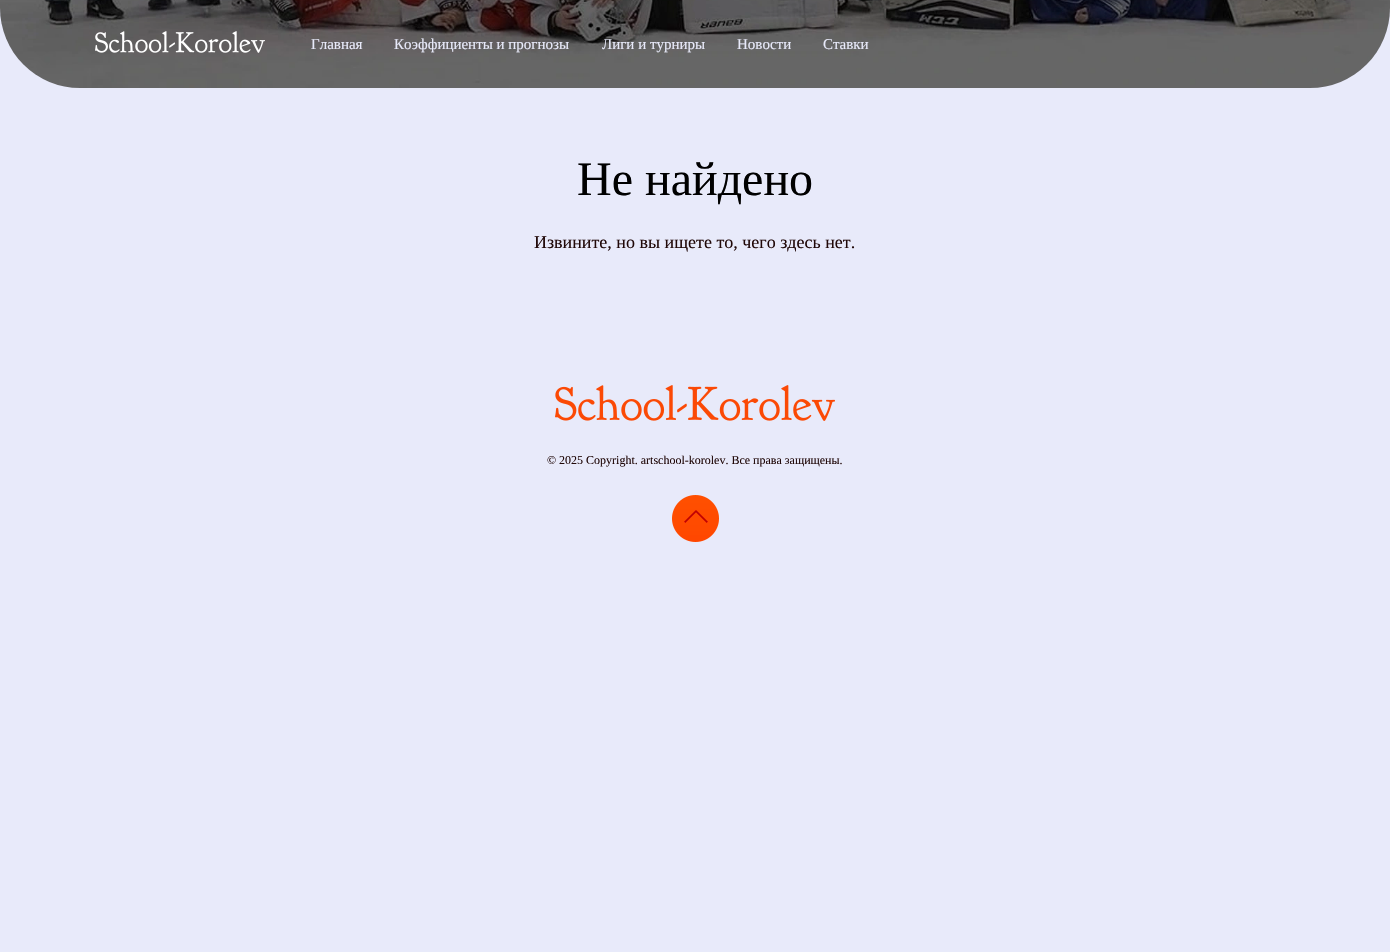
#include "include/core/SkBlurTypes.h"
#include "include/core/SkCanvas.h"
#include "include/core/SkData.h"
#include "include/core/SkFont.h"
#include "include/core/SkFontMgr.h"
#include "include/core/SkImage.h"
#include "include/core/SkMaskFilter.h"
#include "include/core/SkPaint.h"
#include "include/core/SkPathBuilder.h"
#include "include/core/SkTextBlob.h"
#include "include/effects/SkDashPathEffect.h"
#include "include/effects/SkGradientShader.h"
#include "include/utils/SkParsePath.h"

extern sk_sp<SkFontMgr> fontMgr;

void draw(SkCanvas* canvas) {
  SkPaint p;
  p.setAntiAlias(true);
  canvas->clear(SkColorSetRGB(232, 234, 250));
  canvas->drawImageRect(SkImages::DeferredFromEncodedData(SkData::MakeFromFileName("images/1.png")), SkRect::MakeLTRB(0, 0, 1390, 88), SkSamplingOptions());
  canvas->drawImageRect(SkImages::DeferredFromEncodedData(SkData::MakeFromFileName("images/2.png")), SkRect::MakeLTRB(95, 31, 265, 53), SkSamplingOptions());
  canvas->drawImageRect(SkImages::DeferredFromEncodedData(SkData::MakeFromFileName("images/3.png")), SkRect::MakeLTRB(555, 385, 835, 421), SkSamplingOptions());
  canvas->drawImageRect(SkImages::DeferredFromEncodedData(SkData::MakeFromFileName("images/4.png")), SkRect::MakeLTRB(672, 495, 719, 542), SkSamplingOptions());
  SkFont font1(fontMgr->matchFamilyStyle("Liberation Serif", SkFontStyle::Normal()), 15);
  font1.setSubpixel(true);
  p.setColor(SkColorSetRGB(232, 234, 250));
  canvas->drawString("Главная", 311, 49, font1, p);
  canvas->drawString("Коэффициенты и прогнозы", 394, 49, font1, p);
  canvas->drawString("Лиги и турниры", 602, 49, font1, p);
  canvas->drawString("Новости", 737, 49, font1, p);
  canvas->drawString("Ставки", 823, 49, font1, p);
  SkFont font2(fontMgr->matchFamilyStyle("Liberation Serif", SkFontStyle::Normal()), 48);
  font2.setSubpixel(true);
  p.setColor(SK_ColorBLACK);
  canvas->drawString("Не найдено", 577, 195, font2, p);
  SkFont font3(fontMgr->matchFamilyStyle("Liberation Serif", SkFontStyle::Normal()), 18);
  font3.setSubpixel(true);
  p.setColor(SkColorSetRGB(32, 8, 8));
  canvas->drawString("Извините, но вы ищете то, чего здесь нет.", 534, 248, font3, p);
  SkFont font4(fontMgr->matchFamilyStyle("Liberation Serif", SkFontStyle::Normal()), 12);
  font4.setSubpixel(true);
  canvas->drawString("© 2025 Copyright. artschool-korolev. Все права защищены.", 547, 464, font4, p);
}
